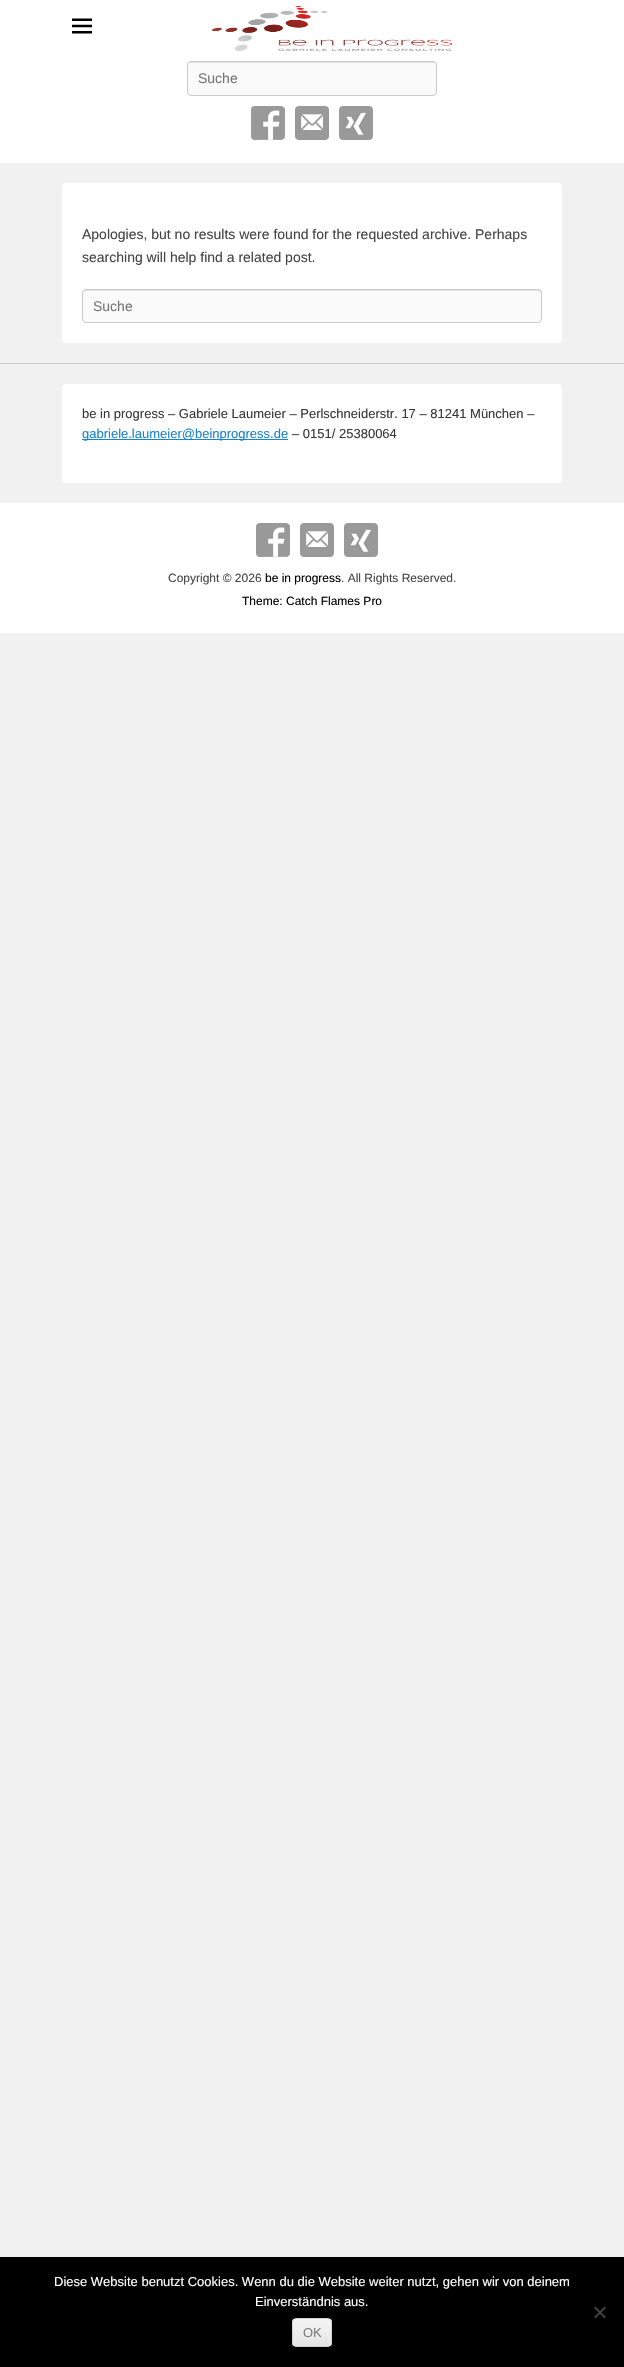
#include "include/core/SkBlurTypes.h"
#include "include/core/SkCanvas.h"
#include "include/core/SkData.h"
#include "include/core/SkFont.h"
#include "include/core/SkFontMgr.h"
#include "include/core/SkImage.h"
#include "include/core/SkMaskFilter.h"
#include "include/core/SkPaint.h"
#include "include/core/SkPathBuilder.h"
#include "include/core/SkTextBlob.h"
#include "include/effects/SkDashPathEffect.h"
#include "include/effects/SkGradientShader.h"
#include "include/utils/SkParsePath.h"

extern sk_sp<SkFontMgr> fontMgr;

void draw(SkCanvas* canvas) {
  SkPaint p;
  p.setAntiAlias(true);
  canvas->clear(SkColorSetRGB(241, 241, 241));
  p.setColor(SK_ColorWHITE);
  canvas->drawRect(SkRect::MakeLTRB(0, 0, 624, 163), p);
  canvas->drawImageRect(SkImages::DeferredFromEncodedData(SkData::MakeFromFileName("images/1.png")), SkRect::MakeLTRB(72, 18, 92, 34), SkSamplingOptions());
  canvas->drawImageRect(SkImages::DeferredFromEncodedData(SkData::MakeFromFileName("images/2.png")), SkRect::MakeLTRB(212, 6, 452, 51), SkSamplingOptions());
  p.setColor(SkColorSetRGB(250, 250, 250));
  canvas->drawRoundRect(SkRect::MakeLTRB(187, 61, 437, 96), 4, 4, p);
  p.setColor(SkColorSetRGB(225, 225, 225));
  canvas->drawPath(SkPathBuilder().moveTo(191, 63).lineTo(433, 63).cubicTo(435, 63, 436, 64, 436, 66).cubicTo(436, 64, 435, 62, 433, 62).lineTo(191, 62).cubicTo(189, 62, 188, 64, 188, 66).cubicTo(188, 64, 189, 63, 191, 63).close().detach(), p);
  p.setStyle(SkPaint::kStroke_Style);
  p.setStrokeWidth(1);
  p.setColor(SkColorSetRGB(204, 204, 204));
  canvas->drawRoundRect(SkRect::MakeLTRB(187.5f, 61.5f, 436.5f, 95.5f), 3.5f, 3.5f, p);
  canvas->drawImageRect(SkImages::DeferredFromEncodedData(SkData::MakeFromFileName("images/3.png")), SkRect::MakeLTRB(251, 106, 285, 140), SkSamplingOptions());
  canvas->drawImageRect(SkImages::DeferredFromEncodedData(SkData::MakeFromFileName("images/4.png")), SkRect::MakeLTRB(295, 106, 329, 140), SkSamplingOptions());
  canvas->drawImageRect(SkImages::DeferredFromEncodedData(SkData::MakeFromFileName("images/5.png")), SkRect::MakeLTRB(339, 106, 373, 140), SkSamplingOptions());
  p.setStyle(SkPaint::kFill_Style);
  p.setColor(SK_ColorWHITE);
  canvas->drawRoundRect(SkRect::MakeLTRB(62, 183, 562, 343), 4, 4, p);
  p.setColor(SkColorSetRGB(250, 250, 250));
  canvas->drawRoundRect(SkRect::MakeLTRB(82, 289, 542, 323), 4, 4, p);
  p.setColor(SkColorSetRGB(225, 225, 225));
  canvas->drawPath(SkPathBuilder().moveTo(86, 291).lineTo(538, 291).cubicTo(540, 291, 541, 292, 541, 294).cubicTo(541, 292, 541, 290, 539, 290).lineTo(85, 290).lineTo(83, 292).lineTo(83, 294).cubicTo(83, 292, 84, 291, 86, 291).close().detach(), p);
  p.setStyle(SkPaint::kStroke_Style);
  p.setColor(SkColorSetRGB(204, 204, 204));
  canvas->drawRoundRect(SkRect::MakeLTRB(82.5f, 289.5f, 541.5f, 322.5f), 3.5f, 3.5f, p);
  p.setStyle(SkPaint::kFill_Style);
  canvas->drawRect(SkRect::MakeLTRB(0, 363, 624, 364), p);
  p.setColor(SK_ColorWHITE);
  canvas->drawRoundRect(SkRect::MakeLTRB(62, 384, 562, 483), 4, 4, p);
  p.setColor(SkColorSetRGB(25, 130, 209));
  canvas->drawRect(SkRect::MakeLTRB(82, 439, 288, 440), p);
  p.setColor(SK_ColorWHITE);
  canvas->drawRect(SkRect::MakeLTRB(0, 503, 624, 633), p);
  canvas->drawImageRect(SkImages::DeferredFromEncodedData(SkData::MakeFromFileName("images/3.png")), SkRect::MakeLTRB(256, 523, 290, 557), SkSamplingOptions());
  canvas->drawImageRect(SkImages::DeferredFromEncodedData(SkData::MakeFromFileName("images/4.png")), SkRect::MakeLTRB(300, 523, 334, 557), SkSamplingOptions());
  canvas->drawImageRect(SkImages::DeferredFromEncodedData(SkData::MakeFromFileName("images/5.png")), SkRect::MakeLTRB(344, 523, 378, 557), SkSamplingOptions());
  p.setColor(SK_ColorBLACK);
  canvas->drawRect(SkRect::MakeLTRB(0, 2257, 624, 2367), p);
  p.setColor(SkColorSetRGB(64, 64, 64));
  canvas->drawPath(SkPathBuilder().moveTo(604.5f, 2306.5f).lineTo(606, 2308).lineTo(595.5f, 2318.5f).lineTo(594, 2317).close().detach(), p);
  canvas->drawPath(SkPathBuilder().moveTo(594, 2308).lineTo(595.5f, 2306.5f).lineTo(606, 2317).lineTo(604.5f, 2318.5f).close().detach(), p);
  canvas->save();
  canvas->clipPath(SkPathBuilder().moveTo(296, 2318).lineTo(328, 2318).cubicTo(330, 2318, 332, 2320, 332, 2322).lineTo(332, 2343).cubicTo(332, 2345, 330, 2347, 328, 2347).lineTo(296, 2347).cubicTo(294, 2347, 292, 2345, 292, 2343).lineTo(292, 2322).cubicTo(292, 2320, 294, 2318, 296, 2318).close().detach(), true);
  {
    const SkColor colors[] = {SkColorSetRGB(244, 244, 244), SkColorSetRGB(230, 230, 230)};
    const float stops[] = {0, 1};
    const SkPoint ends[] = {{312, 2319}, {312, 2346}};
    p.setShader(SkGradientShader::MakeLinear(ends, colors, stops, 2, SkTileMode::kClamp));
    p.setAlpha(255);
  }
  canvas->drawRect(SkRect::MakeLTRB(292, 2319, 332, 2346), p);
  canvas->restore();
  p.setStyle(SkPaint::kStroke_Style);
  p.setShader(nullptr);
  p.setColor(SkColorSetRGB(210, 210, 210));
  canvas->drawRoundRect(SkRect::MakeLTRB(292.5f, 2318.5f, 331.5f, 2346.5f), 3.5f, 3.5f, p);
  SkFont font1(fontMgr->matchFamilyStyle("Liberation Sans", SkFontStyle::Normal()), 14);
  font1.setSubpixel(true);
  p.setStyle(SkPaint::kFill_Style);
  p.setColor(SkColorSetRGB(117, 117, 117));
  canvas->drawString("Suche", 198, 83, font1, p);
  p.setColor(SkColorSetRGB(68, 68, 68));
  canvas->drawString("Apologies, but no results were found for the requested archive. Perhaps", 82, 239, font1, p);
  canvas->drawString("searching will help find a related post.", 82, 262, font1, p);
  p.setColor(SkColorSetRGB(117, 117, 117));
  canvas->drawString("Suche", 93, 311, font1, p);
  SkFont font2(fontMgr->matchFamilyStyle("Liberation Sans", SkFontStyle::Normal()), 13);
  font2.setSubpixel(true);
  p.setColor(SkColorSetRGB(55, 55, 55));
  canvas->drawString("be in progress – Gabriele Laumeier – Perlschneiderstr. 17 – 81241 München –", 82, 418, font2, p);
  p.setColor(SkColorSetRGB(25, 130, 209));
  canvas->drawString("gabriele.laumeier@beinprogress.de", 82, 438, font2, p);
  p.setColor(SkColorSetRGB(55, 55, 55));
  canvas->drawString("– 0151/ 25380064", 292, 438, font2, p);
  SkFont font3(fontMgr->matchFamilyStyle("Liberation Sans", SkFontStyle::Normal()), 12);
  font3.setSubpixel(true);
  p.setColor(SkColorSetRGB(68, 68, 68));
  canvas->drawString("Copyright © 2026", 168, 582, font3, p);
  p.setColor(SK_ColorBLACK);
  canvas->drawString("be in progress", 265, 582, font3, p);
  p.setColor(SkColorSetRGB(68, 68, 68));
  canvas->drawString(". All Rights Reserved.", 341, 582, font3, p);
  p.setColor(SK_ColorBLACK);
  canvas->drawString("Theme: Catch Flames Pro", 242, 605, font3, p);
  p.setColor(SK_ColorWHITE);
  canvas->drawString("Diese Website benutzt Cookies. Wenn du die Website weiter nutzt, gehen wir von deinem", 54, 2286, font2, p);
  canvas->drawString("Einverständnis aus.", 255, 2306, font2, p);
  p.setColor(SkColorSetRGB(124, 124, 124));
  canvas->drawString("OK", 303, 2337, font2, p);
}
